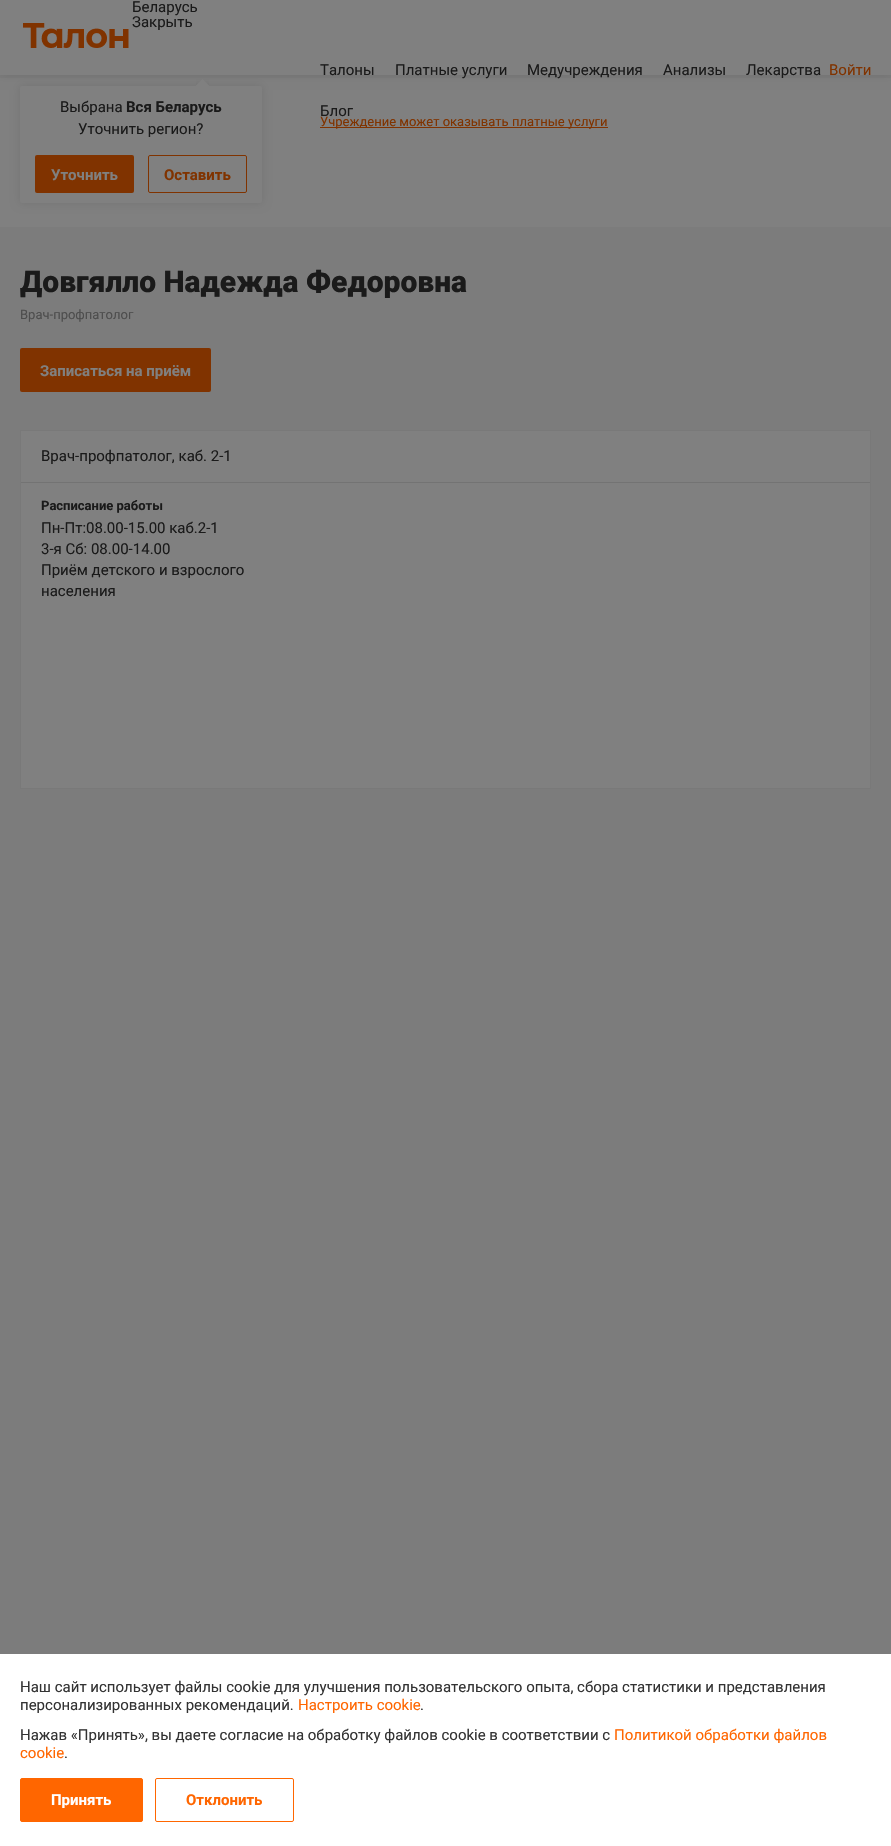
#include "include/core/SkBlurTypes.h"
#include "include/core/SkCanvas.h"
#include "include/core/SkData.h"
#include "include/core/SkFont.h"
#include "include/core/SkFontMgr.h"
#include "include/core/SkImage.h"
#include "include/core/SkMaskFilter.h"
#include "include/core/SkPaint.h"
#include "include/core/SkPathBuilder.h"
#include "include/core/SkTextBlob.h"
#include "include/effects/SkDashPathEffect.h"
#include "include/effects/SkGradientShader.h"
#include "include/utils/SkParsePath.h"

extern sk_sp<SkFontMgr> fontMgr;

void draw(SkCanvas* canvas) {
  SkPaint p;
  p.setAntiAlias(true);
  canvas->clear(SkColorSetRGB(124, 124, 124));
  p.setColor(SkColorSetRGB(128, 128, 128));
  canvas->drawRect(SkRect::MakeLTRB(0, 78, 891, 227), p);
  p.setColor(SkColorSetARGB(26, 0, 0, 0));
  p.setMaskFilter(SkMaskFilter::MakeBlur(kNormal_SkBlurStyle, 5));
  canvas->drawRect(SkRect::MakeLTRB(0, 0, 891, 75), p);
  p.setMaskFilter(nullptr);
  p.setColor(SkColorSetRGB(128, 128, 128));
  canvas->drawRect(SkRect::MakeLTRB(0, 0, 891, 75), p);
  p.setColor(SkColorSetARGB(26, 0, 0, 0));
  p.setMaskFilter(SkMaskFilter::MakeBlur(kNormal_SkBlurStyle, 5));
  canvas->drawRoundRect(SkRect::MakeLTRB(20, 86, 262, 203), 2, 2, p);
  p.setMaskFilter(nullptr);
  p.setColor(SkColorSetRGB(128, 128, 128));
  canvas->drawRoundRect(SkRect::MakeLTRB(20, 86, 262, 203), 2, 2, p);
  canvas->drawImageRect(SkImages::DeferredFromEncodedData(SkData::MakeFromFileName("images/1.png")), SkRect::MakeLTRB(196, 79, 209, 86), SkSamplingOptions());
  p.setColor(SkColorSetRGB(128, 51, 0));
  canvas->drawRoundRect(SkRect::MakeLTRB(35, 155, 134, 193), 2, 2, p);
  p.setStyle(SkPaint::kStroke_Style);
  p.setStrokeWidth(1);
  canvas->drawRoundRect(SkRect::MakeLTRB(148.5f, 155.5f, 246.5f, 192.5f), 1.5f, 1.5f, p);
  canvas->drawImageRect(SkImages::DeferredFromEncodedData(SkData::MakeFromFileName("images/2.png")), SkRect::MakeLTRB(23, 23, 129, 48), SkSamplingOptions());
  p.setStyle(SkPaint::kFill_Style);
  canvas->drawRect(SkRect::MakeLTRB(320, 127, 608, 128), p);
  canvas->drawRoundRect(SkRect::MakeLTRB(20, 348, 211, 392), 2, 2, p);
  p.setColor(SkColorSetRGB(128, 128, 128));
  canvas->drawRect(SkRect::MakeLTRB(20.5f, 430.5f, 870.5f, 788.5f), p);
  p.setStyle(SkPaint::kStroke_Style);
  p.setColor(SkColorSetRGB(121, 121, 121));
  canvas->drawRect(SkRect::MakeLTRB(20.5f, 430.5f, 870.5f, 788.5f), p);
  p.setStyle(SkPaint::kFill_Style);
  p.setColor(SkColorSetRGB(115, 115, 115));
  canvas->drawRect(SkRect::MakeLTRB(21, 482, 870, 483), p);
  p.setColor(SK_ColorWHITE);
  canvas->drawRect(SkRect::MakeLTRB(0, 1654, 891, 1846), p);
  p.setColor(SkColorSetRGB(255, 102, 0));
  canvas->drawRoundRect(SkRect::MakeLTRB(20.5f, 1778.5f, 142.5f, 1821.5f), 1.5f, 1.5f, p);
  p.setStyle(SkPaint::kStroke_Style);
  canvas->drawRoundRect(SkRect::MakeLTRB(20.5f, 1778.5f, 142.5f, 1821.5f), 1.5f, 1.5f, p);
  canvas->drawRoundRect(SkRect::MakeLTRB(155.5f, 1778.5f, 293.5f, 1821.5f), 1.5f, 1.5f, p);
  SkFont font1(fontMgr->matchFamilyStyle("Roboto", SkFontStyle::Normal()), 15);
  font1.setSubpixel(true);
  p.setStyle(SkPaint::kFill_Style);
  p.setColor(SkColorSetRGB(26, 26, 26));
  canvas->drawString("Беларусь", 132, 12, font1, p);
  canvas->drawString("Закрыть", 132, 27, font1, p);
  canvas->drawString("Талоны", 320, 75, font1, p);
  canvas->drawString("Платные услуги", 395, 75, font1, p);
  canvas->drawString("Медучреждения", 527, 75, font1, p);
  canvas->drawString("Анализы", 663, 75, font1, p);
  canvas->drawString("Лекарства", 746, 75, font1, p);
  canvas->drawString("Блог", 320, 116, font1, p);
  canvas->drawString("Выбрана", 60, 112, font1, p);
  SkFont font2(fontMgr->matchFamilyStyle("Roboto", SkFontStyle::Bold()), 15);
  font2.setSubpixel(true);
  canvas->drawString("Вся Беларусь", 126, 112, font2, p);
  canvas->drawString("Уточнить регион?", 78, 134, font1, p);
  p.setColor(SkColorSetRGB(128, 128, 128));
  canvas->drawString("Уточнить", 51, 180, font2, p);
  p.setColor(SkColorSetRGB(128, 51, 0));
  canvas->drawString("Оставить", 164, 180, font2, p);
  canvas->drawString("Войти", 829, 75, font1, p);
  SkFont font3(fontMgr->matchFamilyStyle("Roboto", SkFontStyle::Normal()), 13);
  font3.setSubpixel(true);
  canvas->drawString("Учреждение может оказывать платные услуги", 320, 126, font3, p);
  SkFont font4(fontMgr->matchFamilyStyle("Roboto", SkFontStyle(900, SkFontStyle::kNormal_Width, SkFontStyle::kUpright_Slant)), 30);
  font4.setSubpixel(true);
  p.setColor(SkColorSetRGB(26, 26, 26));
  canvas->drawString("Довгялло Надежда Федоровна", 20, 292, font4, p);
  p.setColor(SkColorSetRGB(77, 77, 77));
  canvas->drawString("Врач-профпатолог", 20, 319, font3, p);
  p.setColor(SkColorSetRGB(128, 128, 128));
  canvas->drawString("Записаться на приём", 40, 376, font2, p);
  p.setColor(SkColorSetRGB(26, 26, 26));
  canvas->drawString("Врач-профпатолог, каб. 2-1", 41, 461, font1, p);
  SkFont font5(fontMgr->matchFamilyStyle("Roboto", SkFontStyle::Bold()), 13);
  font5.setSubpixel(true);
  canvas->drawString("Расписание работы", 41, 510, font5, p);
  canvas->drawString("Пн-Пт:08.00-15.00 каб.2-1", 41, 533, font1, p);
  canvas->drawString("3-я Сб: 08.00-14.00", 41, 554, font1, p);
  canvas->drawString("Приём детского и взрослого", 41, 575, font1, p);
  canvas->drawString("населения", 41, 596, font1, p);
  p.setColor(SkColorSetRGB(51, 51, 51));
  canvas->drawString("Наш сайт использует файлы cookie для улучшения пользовательского опыта, сбора статистики и представления", 20, 1692, font1, p);
  canvas->drawString("персонализированных рекомендаций.", 20, 1710, font1, p);
  p.setColor(SkColorSetRGB(255, 102, 0));
  canvas->drawString("Настроить cookie", 298, 1710, font1, p);
  p.setColor(SkColorSetRGB(51, 51, 51));
  canvas->drawString(".", 420, 1710, font1, p);
  canvas->drawString("Нажав «Принять», вы даете согласие на обработку файлов cookie в соответствии с", 20, 1740, font1, p);
  p.setColor(SkColorSetRGB(255, 102, 0));
  canvas->drawString("Политикой обработки файлов", 614, 1740, font1, p);
  canvas->drawString("cookie", 20, 1758, font1, p);
  p.setColor(SkColorSetRGB(51, 51, 51));
  canvas->drawString(".", 64, 1758, font1, p);
  p.setColor(SK_ColorWHITE);
  canvas->drawString("Принять", 51, 1805, font2, p);
  p.setColor(SkColorSetRGB(255, 102, 0));
  canvas->drawString("Отклонить", 186, 1805, font2, p);
}
